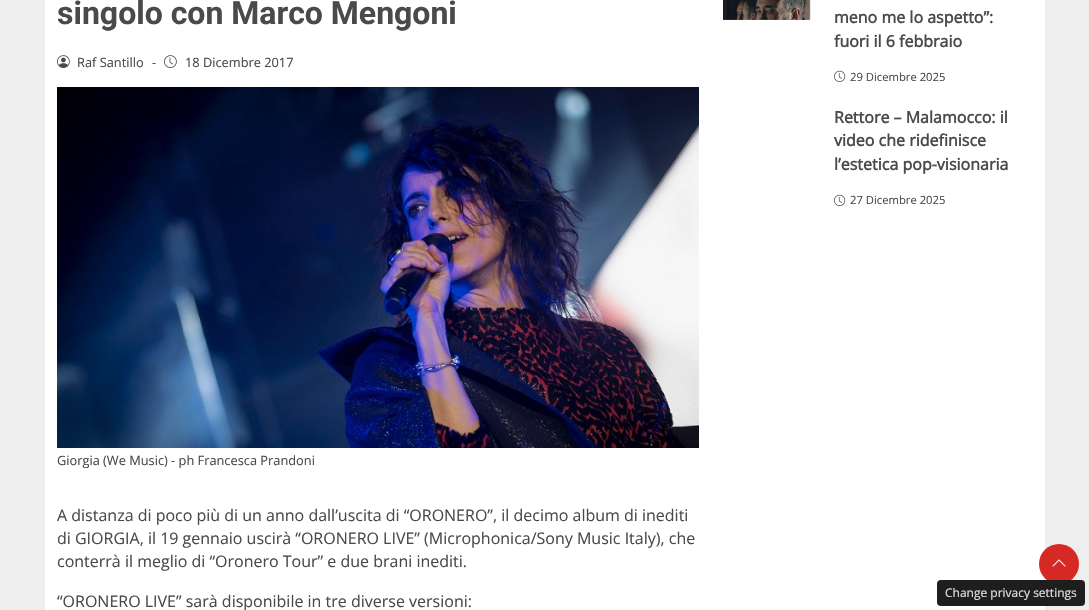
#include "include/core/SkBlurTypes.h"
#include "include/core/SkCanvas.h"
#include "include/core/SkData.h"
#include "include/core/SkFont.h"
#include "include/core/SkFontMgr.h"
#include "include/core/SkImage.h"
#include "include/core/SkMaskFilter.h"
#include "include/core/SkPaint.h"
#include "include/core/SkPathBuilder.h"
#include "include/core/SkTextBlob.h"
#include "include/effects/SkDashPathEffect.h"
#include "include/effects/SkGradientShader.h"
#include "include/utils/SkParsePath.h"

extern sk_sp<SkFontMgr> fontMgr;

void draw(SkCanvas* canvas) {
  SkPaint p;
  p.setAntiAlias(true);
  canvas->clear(SkColorSetRGB(238, 238, 238));
  p.setColor(SK_ColorWHITE);
  canvas->drawRect(SkRect::MakeLTRB(45, 0, 1045, 610), p);
  canvas->drawImageRect(SkImages::DeferredFromEncodedData(SkData::MakeFromFileName("images/1.png")), SkRect::MakeLTRB(57, 55, 70, 68), SkSamplingOptions());
  canvas->drawImageRect(SkImages::DeferredFromEncodedData(SkData::MakeFromFileName("images/2.png")), SkRect::MakeLTRB(164, 55, 177, 68), SkSamplingOptions());
  canvas->drawImageRect(SkImages::DeferredFromEncodedData(SkData::MakeFromFileName("images/3.png")), SkRect::MakeLTRB(57, 87, 699, 448), SkSamplingOptions());
  canvas->drawImageRect(SkImages::DeferredFromEncodedData(SkData::MakeFromFileName("images/4.png")), SkRect::MakeLTRB(723, 0, 811, 20), SkSamplingOptions());
  canvas->drawImageRect(SkImages::DeferredFromEncodedData(SkData::MakeFromFileName("images/5.png")), SkRect::MakeLTRB(834, 70, 846, 82), SkSamplingOptions());
  canvas->drawImageRect(SkImages::DeferredFromEncodedData(SkData::MakeFromFileName("images/5.png")), SkRect::MakeLTRB(834, 194, 846, 206), SkSamplingOptions());
  p.setColor(SkColorSetRGB(215, 41, 36));
  canvas->drawCircle(1059, 564, 20, p);
  canvas->drawImageRect(SkImages::DeferredFromEncodedData(SkData::MakeFromFileName("images/6.png")), SkRect::MakeLTRB(1052, 559, 1066, 567), SkSamplingOptions());
  p.setColor(SkColorSetRGB(30, 30, 30));
  canvas->drawRoundRect(SkRect::MakeLTRB(937, 580, 1085, 606), 4, 4, p);
  SkFont font1(fontMgr->matchFamilyStyle("Roboto", SkFontStyle::Bold()), 32);
  font1.setSubpixel(true);
  p.setColor(SkColorSetRGB(74, 74, 74));
  canvas->drawString("singolo con Marco Mengoni", 57, 24, font1, p);
  SkFont font2(fontMgr->matchFamilyStyle("Open Sans", SkFontStyle::Normal()), 12.8f);
  font2.setSubpixel(true);
  canvas->drawString("Raf Santillo", 77, 67, font2, p);
  canvas->drawString("-", 152, 67, font2, p);
  canvas->drawString("18 Dicembre 2017", 185, 67, font2, p);
  canvas->drawString("Giorgia (We Music) - ph Francesca Prandoni", 57, 465, font2, p);
  SkFont font3(fontMgr->matchFamilyStyle("Open Sans", SkFontStyle::Normal()), 16);
  font3.setSubpixel(true);
  canvas->drawString("A distanza di poco più di un anno dall’uscita di “ORONERO”, il decimo album di inediti", 57, 521, font3, p);
  canvas->drawString("di GIORGIA, il 19 gennaio uscirà “ORONERO LIVE” (Microphonica/Sony Music Italy), che", 57, 544, font3, p);
  canvas->drawString("conterrà il meglio di “Oronero Tour” e due brani inediti.", 57, 567, font3, p);
  canvas->drawString("“ORONERO LIVE” sarà disponibile in tre diverse versioni:", 57, 607, font3, p);
  SkFont font4(fontMgr->matchFamilyStyle("Open Sans", SkFontStyle::Bold()), 16);
  font4.setSubpixel(true);
  canvas->drawString("meno me lo aspetto”:", 834, 23, font4, p);
  canvas->drawString("fuori il 6 febbraio", 834, 47, font4, p);
  SkFont font5(fontMgr->matchFamilyStyle("Open Sans", SkFontStyle::Normal()), 11.25f);
  font5.setSubpixel(true);
  canvas->drawString("29 Dicembre 2025", 850, 81, font5, p);
  canvas->drawString("Rettore – Malamocco: il", 834, 123, font4, p);
  canvas->drawString("video che ridefinisce", 834, 146, font4, p);
  canvas->drawString("l’estetica pop-visionaria", 834, 170, font4, p);
  canvas->drawString("27 Dicembre 2025", 850, 204, font5, p);
  SkFont font6(fontMgr->matchFamilyStyle("Open Sans", SkFontStyle::Normal()), 12);
  font6.setSubpixel(true);
  p.setColor(SkColorSetRGB(227, 225, 225));
  canvas->drawString("Change privacy settings", 945, 597, font6, p);
}
